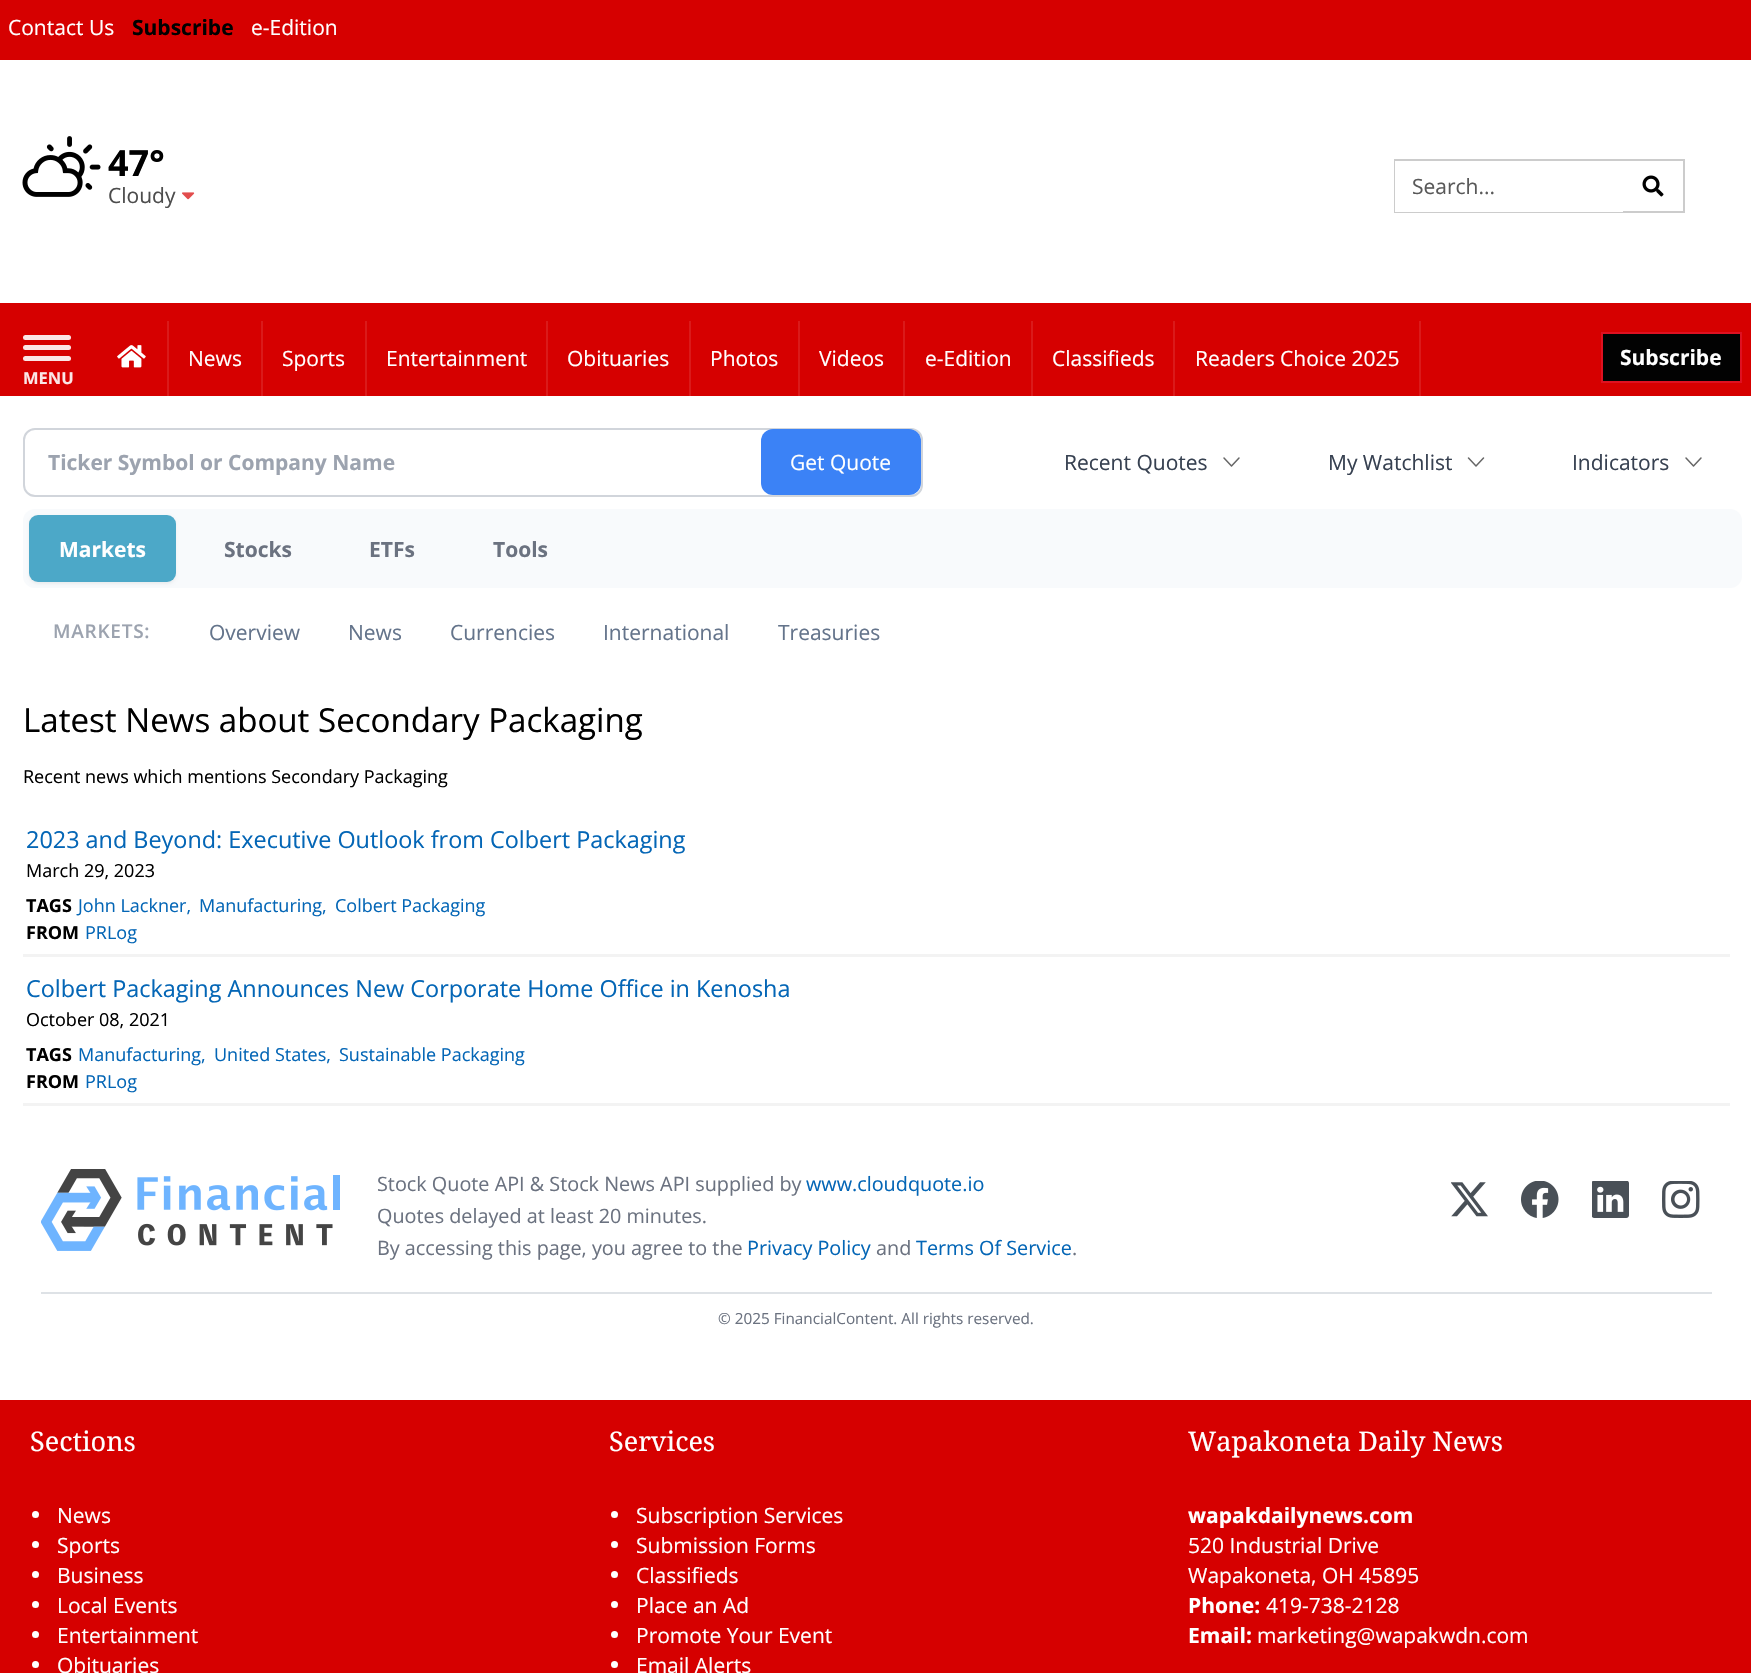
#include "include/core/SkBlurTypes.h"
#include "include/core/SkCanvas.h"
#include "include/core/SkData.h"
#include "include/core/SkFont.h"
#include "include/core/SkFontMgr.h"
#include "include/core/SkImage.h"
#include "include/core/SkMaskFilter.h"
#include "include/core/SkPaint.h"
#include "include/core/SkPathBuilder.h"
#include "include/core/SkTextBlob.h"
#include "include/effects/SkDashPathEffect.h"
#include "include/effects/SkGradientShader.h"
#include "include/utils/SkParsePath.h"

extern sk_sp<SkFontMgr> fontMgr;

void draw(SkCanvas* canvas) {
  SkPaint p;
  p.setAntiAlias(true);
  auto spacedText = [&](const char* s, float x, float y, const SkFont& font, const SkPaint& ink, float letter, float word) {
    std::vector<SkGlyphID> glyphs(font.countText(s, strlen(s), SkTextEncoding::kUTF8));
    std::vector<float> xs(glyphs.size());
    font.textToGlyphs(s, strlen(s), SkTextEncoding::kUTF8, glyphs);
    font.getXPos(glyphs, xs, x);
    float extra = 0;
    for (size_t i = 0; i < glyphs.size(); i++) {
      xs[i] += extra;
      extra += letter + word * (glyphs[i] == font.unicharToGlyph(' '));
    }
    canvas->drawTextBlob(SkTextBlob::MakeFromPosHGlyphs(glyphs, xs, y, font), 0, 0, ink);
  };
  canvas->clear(SkColorSetRGB(214, 0, 0));
  p.setColor(SK_ColorWHITE);
  canvas->drawRect(SkRect::MakeLTRB(0, 60, 1751, 303), p);
  canvas->drawImageRect(SkImages::DeferredFromEncodedData(SkData::MakeFromFileName("images/1.png")), SkRect::MakeLTRB(22, 136, 101, 197), SkSamplingOptions());
  canvas->drawImageRect(SkImages::DeferredFromEncodedData(SkData::MakeFromFileName("images/2.png")), SkRect::MakeLTRB(182, 192, 195, 200), SkSamplingOptions());
  p.setStyle(SkPaint::kStroke_Style);
  p.setStrokeWidth(2);
  p.setColor(SkColorSetRGB(204, 204, 204));
  canvas->drawRect(SkRect::MakeLTRB(1395, 160, 1684, 212), p);
  p.setStyle(SkPaint::kFill_Style);
  p.setColor(SK_ColorWHITE);
  canvas->drawRect(SkRect::MakeLTRB(1395, 161, 1623, 212), p);
  canvas->drawImageRect(SkImages::DeferredFromEncodedData(SkData::MakeFromFileName("images/3.png")), SkRect::MakeLTRB(1642, 175, 1664, 197), SkSamplingOptions());
  p.setColor(SkColorSetRGB(218, 26, 26));
  canvas->drawRect(SkRect::MakeLTRB(167, 321, 169, 396), p);
  canvas->drawImageRect(SkImages::DeferredFromEncodedData(SkData::MakeFromFileName("images/4.png")), SkRect::MakeLTRB(117, 345, 146, 368), SkSamplingOptions());
  canvas->drawRect(SkRect::MakeLTRB(261, 321, 263, 396), p);
  canvas->drawRect(SkRect::MakeLTRB(365, 321, 367, 396), p);
  canvas->drawRect(SkRect::MakeLTRB(546, 321, 548, 396), p);
  canvas->drawRect(SkRect::MakeLTRB(689, 321, 691, 396), p);
  canvas->drawRect(SkRect::MakeLTRB(798, 321, 800, 396), p);
  canvas->drawRect(SkRect::MakeLTRB(903, 321, 905, 396), p);
  canvas->drawRect(SkRect::MakeLTRB(1031, 321, 1033, 396), p);
  canvas->drawRect(SkRect::MakeLTRB(1173, 321, 1175, 396), p);
  canvas->drawRect(SkRect::MakeLTRB(1419, 321, 1421, 396), p);
  p.setColor(SkColorSetRGB(2, 2, 2));
  canvas->drawRect(SkRect::MakeLTRB(1602, 333, 1741, 382), p);
  p.setStyle(SkPaint::kStroke_Style);
  p.setColor(SkColorSetRGB(222, 17, 33));
  canvas->drawRect(SkRect::MakeLTRB(1602, 333, 1741, 382), p);
  p.setStyle(SkPaint::kFill_Style);
  p.setColor(SkColorSetRGB(251, 230, 230));
  canvas->drawRoundRect(SkRect::MakeLTRB(23, 335, 71, 340), 2.5f, 2.5f, p);
  canvas->drawRoundRect(SkRect::MakeLTRB(23, 345, 71, 350), 2.5f, 2.5f, p);
  canvas->drawRoundRect(SkRect::MakeLTRB(23, 356, 71, 361), 2.5f, 2.5f, p);
  p.setColor(SK_ColorWHITE);
  canvas->drawRect(SkRect::MakeLTRB(0, 396, 1751, 1400), p);
  p.setStyle(SkPaint::kStroke_Style);
  p.setColor(SkColorSetRGB(209, 213, 219));
  canvas->drawRoundRect(SkRect::MakeLTRB(24, 429, 922, 496), 11, 11, p);
  p.setStyle(SkPaint::kFill_Style);
  p.setColor(SkColorSetRGB(59, 130, 246));
  canvas->drawRoundRect(SkRect::MakeLTRB(761, 429, 921, 495), 12, 12, p);
  p.setStyle(SkPaint::kStroke_Style);
  p.setStrokeWidth(1.5f);
  p.setStrokeCap(SkPaint::kRound_Cap);
  p.setStrokeJoin(SkPaint::kRound_Join);
  p.setColor(SkColorSetRGB(102, 102, 102));
  canvas->drawPath(SkPathBuilder().moveTo(1239, 458).lineTo(1231.5f, 466).lineTo(1224, 458).detach(), p);
  canvas->drawPath(SkPathBuilder().moveTo(1483.5f, 458).lineTo(1476, 466).lineTo(1468.5f, 458).detach(), p);
  canvas->drawPath(SkPathBuilder().moveTo(1701, 458).lineTo(1693.5f, 466).lineTo(1686, 458).detach(), p);
  p.setStyle(SkPaint::kFill_Style);
  p.setColor(SkColorSetRGB(248, 250, 252));
  canvas->drawRoundRect(SkRect::MakeLTRB(23, 509, 1742, 588), 12, 12, p);
  p.setColor(SkColorSetARGB(13, 0, 0, 0));
  p.setMaskFilter(SkMaskFilter::MakeBlur(kNormal_SkBlurStyle, 1.5f));
  canvas->drawRoundRect(SkRect::MakeLTRB(29, 516, 176, 584), 9, 9, p);
  p.setMaskFilter(nullptr);
  p.setColor(SkColorSetRGB(76, 168, 200));
  canvas->drawRoundRect(SkRect::MakeLTRB(29, 515, 176, 582), 9, 9, p);
  p.setColor(SkColorSetRGB(243, 243, 243));
  canvas->drawRect(SkRect::MakeLTRB(23, 954, 1730, 957), p);
  canvas->drawRect(SkRect::MakeLTRB(23, 1103, 1730, 1106), p);
  canvas->drawImageRect(SkImages::DeferredFromEncodedData(SkData::MakeFromFileName("images/5.png")), SkRect::MakeLTRB(41, 1169, 340, 1251), SkSamplingOptions());
  canvas->drawImageRect(SkImages::DeferredFromEncodedData(SkData::MakeFromFileName("images/6.png")), SkRect::MakeLTRB(1451, 1182, 1488, 1217), SkSamplingOptions());
  canvas->drawImageRect(SkImages::DeferredFromEncodedData(SkData::MakeFromFileName("images/7.png")), SkRect::MakeLTRB(1521, 1181, 1559, 1218), SkSamplingOptions());
  canvas->drawImageRect(SkImages::DeferredFromEncodedData(SkData::MakeFromFileName("images/8.png")), SkRect::MakeLTRB(1592, 1181, 1629, 1218), SkSamplingOptions());
  canvas->drawImageRect(SkImages::DeferredFromEncodedData(SkData::MakeFromFileName("images/9.png")), SkRect::MakeLTRB(1662, 1181, 1700, 1218), SkSamplingOptions());
  p.setColor(SkColorSetRGB(222, 226, 230));
  canvas->drawRect(SkRect::MakeLTRB(41, 1292, 1712, 1294), p);
  p.setColor(SK_ColorWHITE);
  canvas->drawCircle(35.5f, 1514.5f, 3.5f, p);
  canvas->drawCircle(35.5f, 1544.5f, 3.5f, p);
  canvas->drawCircle(35.5f, 1574.5f, 3.5f, p);
  canvas->drawCircle(35.5f, 1604.5f, 3.5f, p);
  canvas->drawCircle(35.5f, 1634.5f, 3.5f, p);
  canvas->drawCircle(35.5f, 1664.5f, 3.5f, p);
  canvas->drawCircle(614.5f, 1514.5f, 3.5f, p);
  canvas->drawCircle(614.5f, 1544.5f, 3.5f, p);
  canvas->drawCircle(614.5f, 1574.5f, 3.5f, p);
  canvas->drawCircle(614.5f, 1604.5f, 3.5f, p);
  canvas->drawCircle(614.5f, 1634.5f, 3.5f, p);
  canvas->drawCircle(614.5f, 1664.5f, 3.5f, p);
  SkFont font1(fontMgr->matchFamilyStyle("Open Sans", SkFontStyle::Normal()), 21);
  font1.setSubpixel(true);
  canvas->drawString("Contact Us", 8, 35, font1, p);
  SkFont font2(fontMgr->matchFamilyStyle("Open Sans", SkFontStyle::Bold()), 21);
  font2.setSubpixel(true);
  p.setColor(SK_ColorBLACK);
  canvas->drawString("Subscribe", 132, 35, font2, p);
  p.setColor(SK_ColorWHITE);
  canvas->drawString("e-Edition", 251, 35, font1, p);
  SkFont font3(fontMgr->matchFamilyStyle("Open Sans", SkFontStyle::Bold()), 36);
  font3.setSubpixel(true);
  p.setColor(SK_ColorBLACK);
  canvas->drawString("47°", 108, 176, font3, p);
  p.setColor(SkColorSetRGB(77, 77, 77));
  canvas->drawString("Cloudy", 108, 203, font1, p);
  p.setColor(SkColorSetRGB(89, 89, 89));
  canvas->drawString("Search...", 1412, 194, font1, p);
  p.setColor(SK_ColorWHITE);
  canvas->drawString("News", 188, 366, font1, p);
  canvas->drawString("Sports", 282, 366, font1, p);
  canvas->drawString("Entertainment", 386, 366, font1, p);
  canvas->drawString("Obituaries", 567, 366, font1, p);
  canvas->drawString("Photos", 710, 366, font1, p);
  canvas->drawString("Videos", 819, 366, font1, p);
  canvas->drawString("e-Edition", 925, 366, font1, p);
  canvas->drawString("Classifieds", 1052, 366, font1, p);
  canvas->drawString("Readers Choice 2025", 1195, 366, font1, p);
  canvas->drawString("Subscribe", 1620, 365, font2, p);
  SkFont font4(fontMgr->matchFamilyStyle("Open Sans", SkFontStyle::Bold()), 16.5f);
  font4.setSubpixel(true);
  p.setColor(SkColorSetRGB(251, 230, 230));
  canvas->drawString("MENU", 23, 384, font4, p);
  p.setColor(SkColorSetRGB(156, 163, 175));
  canvas->drawString("Ticker Symbol or Company Name", 48, 470, font2, p);
  p.setColor(SK_ColorWHITE);
  canvas->drawString("Get Quote", 790, 470, font1, p);
  p.setColor(SkColorSetRGB(55, 65, 81));
  canvas->drawString("Recent Quotes", 1064, 470, font1, p);
  canvas->drawString("My Watchlist", 1328, 470, font1, p);
  canvas->drawString("Indicators", 1572, 470, font1, p);
  p.setColor(SK_ColorWHITE);
  canvas->drawString("Markets", 59, 557, font2, p);
  p.setColor(SkColorSetRGB(107, 114, 128));
  canvas->drawString("Stocks", 224, 557, font2, p);
  canvas->drawString("ETFs", 369, 557, font2, p);
  canvas->drawString("Tools", 493, 557, font2, p);
  SkFont font5(fontMgr->matchFamilyStyle("Open Sans", SkFontStyle(600, SkFontStyle::kNormal_Width, SkFontStyle::kUpright_Slant)), 19);
  font5.setSubpixel(true);
  p.setColor(SkColorSetRGB(156, 163, 175));
  spacedText("MARKETS:", 53, 638, font5, p, 0.75f, 0);
  p.setColor(SkColorSetRGB(100, 116, 139));
  canvas->drawString("Overview", 209, 640, font1, p);
  canvas->drawString("News", 348, 640, font1, p);
  canvas->drawString("Currencies", 450, 640, font1, p);
  canvas->drawString("International", 603, 640, font1, p);
  canvas->drawString("Treasuries", 778, 640, font1, p);
  SkFont font6(fontMgr->matchFamilyStyle("Open Sans", SkFontStyle::Normal()), 33.1f);
  font6.setSubpixel(true);
  p.setColor(SK_ColorBLACK);
  canvas->drawString("Latest News about Secondary Packaging", 23, 732, font6, p);
  SkFont font7(fontMgr->matchFamilyStyle("Open Sans", SkFontStyle::Normal()), 18);
  font7.setSubpixel(true);
  canvas->drawString("Recent news which mentions Secondary Packaging", 23, 783, font7, p);
  SkFont font8(fontMgr->matchFamilyStyle("Open Sans", SkFontStyle::Normal()), 23.4f);
  font8.setSubpixel(true);
  p.setColor(SkColorSetRGB(4, 102, 182));
  canvas->drawString("2023 and Beyond: Executive Outlook from Colbert Packaging", 26, 848, font8, p);
  p.setColor(SK_ColorBLACK);
  canvas->drawString("March 29, 2023", 26, 877, font7, p);
  SkFont font9(fontMgr->matchFamilyStyle("Open Sans", SkFontStyle::Bold()), 18);
  font9.setSubpixel(true);
  canvas->drawString("TAGS", 26, 912, font9, p);
  p.setColor(SkColorSetRGB(4, 102, 182));
  canvas->drawString("John Lackner,", 78, 912, font7, p);
  canvas->drawString("Manufacturing,", 199, 912, font7, p);
  canvas->drawString("Colbert Packaging", 335, 912, font7, p);
  p.setColor(SK_ColorBLACK);
  canvas->drawString("FROM", 26, 939, font9, p);
  p.setColor(SkColorSetRGB(4, 102, 182));
  canvas->drawString("PRLog", 85, 939, font7, p);
  canvas->drawString("Colbert Packaging Announces New Corporate Home Office in Kenosha", 26, 997, font8, p);
  p.setColor(SK_ColorBLACK);
  canvas->drawString("October 08, 2021", 26, 1026, font7, p);
  canvas->drawString("TAGS", 26, 1061, font9, p);
  p.setColor(SkColorSetRGB(4, 102, 182));
  canvas->drawString("Manufacturing,", 78, 1061, font7, p);
  canvas->drawString("United States,", 214, 1061, font7, p);
  canvas->drawString("Sustainable Packaging", 339, 1061, font7, p);
  p.setColor(SK_ColorBLACK);
  canvas->drawString("FROM", 26, 1088, font9, p);
  p.setColor(SkColorSetRGB(4, 102, 182));
  canvas->drawString("PRLog", 85, 1088, font7, p);
  SkFont font10(fontMgr->matchFamilyStyle("Open Sans", SkFontStyle::Normal()), 19.8f);
  font10.setSubpixel(true);
  p.setColor(SkColorSetRGB(107, 114, 128));
  canvas->drawString("Stock Quote API & Stock News API supplied by", 377, 1191, font10, p);
  p.setColor(SkColorSetRGB(4, 102, 182));
  canvas->drawString("www.cloudquote.io", 806, 1191, font10, p);
  p.setColor(SkColorSetRGB(107, 114, 128));
  canvas->drawString("Quotes delayed at least 20 minutes.", 377, 1223, font10, p);
  canvas->drawString("By accessing this page, you agree to the", 377, 1255, font10, p);
  p.setColor(SkColorSetRGB(4, 102, 182));
  canvas->drawString("Privacy Policy", 747, 1255, font10, p);
  p.setColor(SkColorSetRGB(107, 114, 128));
  canvas->drawString("and", 876, 1255, font10, p);
  p.setColor(SkColorSetRGB(4, 102, 182));
  canvas->drawString("Terms Of Service", 916, 1255, font10, p);
  p.setColor(SkColorSetRGB(107, 114, 128));
  canvas->drawString(".", 1072, 1255, font10, p);
  SkFont font11(fontMgr->matchFamilyStyle("Open Sans", SkFontStyle::Normal()), 15.3f);
  font11.setSubpixel(true);
  canvas->drawString("© 2025 FinancialContent. All rights reserved.", 718, 1324, font11, p);
  SkFont font12(fontMgr->matchFamilyStyle("Droid Serif", SkFontStyle::Normal()), 27);
  font12.setSubpixel(true);
  p.setColor(SK_ColorWHITE);
  canvas->drawString("Sections", 30, 1451, font12, p);
  canvas->drawString("News", 57, 1523, font1, p);
  canvas->drawString("Sports", 57, 1553, font1, p);
  canvas->drawString("Business", 57, 1583, font1, p);
  canvas->drawString("Local Events", 57, 1613, font1, p);
  canvas->drawString("Entertainment", 57, 1643, font1, p);
  canvas->drawString("Obituaries", 57, 1673, font1, p);
  canvas->drawString("Services", 609, 1451, font12, p);
  canvas->drawString("Subscription Services", 636, 1523, font1, p);
  canvas->drawString("Submission Forms", 636, 1553, font1, p);
  canvas->drawString("Classifieds", 636, 1583, font1, p);
  canvas->drawString("Place an Ad", 636, 1613, font1, p);
  canvas->drawString("Promote Your Event", 636, 1643, font1, p);
  canvas->drawString("Email Alerts", 636, 1673, font1, p);
  canvas->drawString("Wapakoneta Daily News", 1188, 1451, font12, p);
  canvas->drawString("wapakdailynews.com", 1188, 1523, font2, p);
  canvas->drawString("520 Industrial Drive", 1188, 1553, font1, p);
  canvas->drawString("Wapakoneta, OH 45895", 1188, 1583, font1, p);
  canvas->drawString("Phone:", 1188, 1613, font2, p);
  canvas->drawString("419-738-2128", 1266, 1613, font1, p);
  canvas->drawString("Email:", 1188, 1643, font2, p);
  canvas->drawString("marketing@wapakwdn.com", 1257, 1643, font1, p);
}
